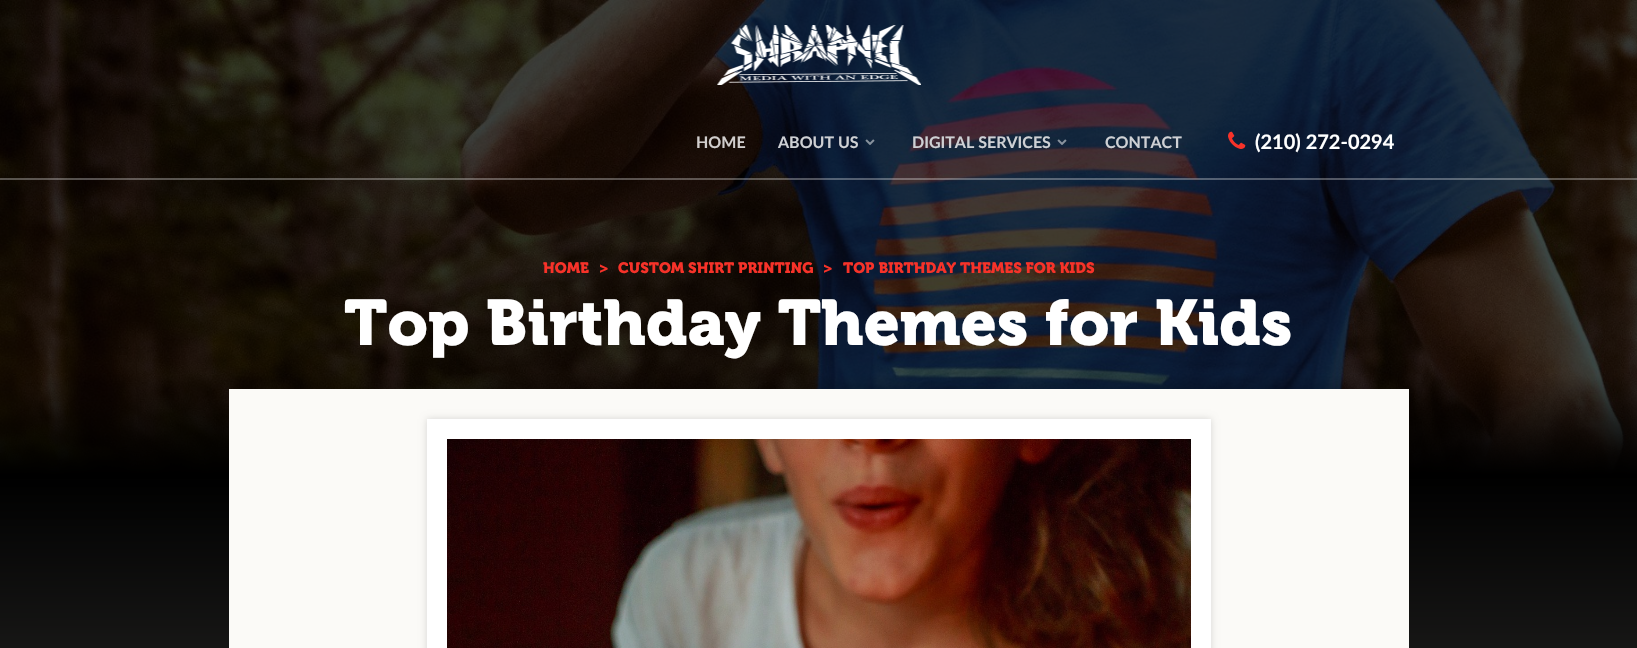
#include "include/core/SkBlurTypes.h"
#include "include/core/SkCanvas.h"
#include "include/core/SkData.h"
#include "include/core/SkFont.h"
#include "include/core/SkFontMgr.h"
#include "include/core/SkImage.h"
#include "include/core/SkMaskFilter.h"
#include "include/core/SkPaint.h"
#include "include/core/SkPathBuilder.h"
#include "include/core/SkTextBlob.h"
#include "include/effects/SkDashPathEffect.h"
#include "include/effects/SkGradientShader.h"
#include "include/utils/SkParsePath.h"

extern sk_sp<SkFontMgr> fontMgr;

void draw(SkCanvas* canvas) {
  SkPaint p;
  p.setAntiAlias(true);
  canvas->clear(SK_ColorWHITE);
  canvas->drawImageRect(SkImages::DeferredFromEncodedData(SkData::MakeFromFileName("images/1.png")), SkRect::MakeLTRB(0, 0, 1637, 475), SkSamplingOptions());
  canvas->drawImageRect(SkImages::DeferredFromEncodedData(SkData::MakeFromFileName("images/2.png")), SkRect::MakeLTRB(717, 25, 921, 85), SkSamplingOptions());
  canvas->drawImageRect(SkImages::DeferredFromEncodedData(SkData::MakeFromFileName("images/3.png")), SkRect::MakeLTRB(865, 139, 875, 145), SkSamplingOptions());
  canvas->drawImageRect(SkImages::DeferredFromEncodedData(SkData::MakeFromFileName("images/4.png")), SkRect::MakeLTRB(1057, 139, 1067, 145), SkSamplingOptions());
  canvas->drawImageRect(SkImages::DeferredFromEncodedData(SkData::MakeFromFileName("images/5.png")), SkRect::MakeLTRB(1228, 131, 1246, 149), SkSamplingOptions());
  p.setColor(SkColorSetARGB(77, 255, 255, 255));
  canvas->drawRect(SkRect::MakeLTRB(0, 178, 1637, 180), p);
  {
    const SkColor colors[] = {SK_ColorBLACK, SkColorSetRGB(238, 234, 226)};
    const float stops[] = {0, 1};
    const SkPoint ends[] = {{818, 475}, {819, 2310}};
    p.setShader(SkGradientShader::MakeLinear(ends, colors, stops, 2, SkTileMode::kClamp));
    p.setAlpha(255);
  }
  canvas->drawRect(SkRect::MakeLTRB(0, 475, 1637, 648), p);
  p.setShader(nullptr);
  p.setColor(SkColorSetRGB(251, 250, 247));
  canvas->drawRect(SkRect::MakeLTRB(229, 389, 1409, 648), p);
  p.setColor(SkColorSetARGB(38, 0, 0, 0));
  p.setMaskFilter(SkMaskFilter::MakeBlur(kNormal_SkBlurStyle, 3.5f));
  canvas->drawRect(SkRect::MakeLTRB(427, 419, 1211, 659), p);
  p.setMaskFilter(nullptr);
  p.setColor(SK_ColorWHITE);
  canvas->drawRect(SkRect::MakeLTRB(427, 419, 1211, 648), p);
  canvas->drawImageRect(SkImages::DeferredFromEncodedData(SkData::MakeFromFileName("images/6.png")), SkRect::MakeLTRB(447, 439, 1191, 648), SkSamplingOptions());
  SkFont font1(fontMgr->matchFamilyStyle("Lato", SkFontStyle::Bold()), 16);
  font1.setSubpixel(true);
  p.setColor(SkColorSetRGB(209, 206, 205));
  canvas->drawString("HOME", 696, 148, font1, p);
  p.setColor(SkColorSetRGB(206, 208, 212));
  canvas->drawString("ABOUT US", 778, 148, font1, p);
  canvas->drawString("DIGITAL SERVICES", 912, 148, font1, p);
  canvas->drawString("CONTACT", 1105, 148, font1, p);
  SkFont font2(fontMgr->matchFamilyStyle("Lato", SkFontStyle::Bold()), 20);
  font2.setSubpixel(true);
  p.setColor(SK_ColorWHITE);
  canvas->drawString("(210) 272-0294", 1255, 149, font2, p);
  SkFont font3(fontMgr->matchFamilyStyle("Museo", SkFontStyle(600, SkFontStyle::kNormal_Width, SkFontStyle::kUpright_Slant)), 15);
  font3.setSubpixel(true);
  p.setColor(SkColorSetRGB(247, 50, 41));
  canvas->drawString("HOME", 543, 273, font3, p);
  canvas->drawString(">", 599, 273, font3, p);
  canvas->drawString("CUSTOM SHIRT PRINTING", 618, 273, font3, p);
  canvas->drawString(">", 823, 273, font3, p);
  canvas->drawString("TOP BIRTHDAY THEMES FOR KIDS", 843, 273, font3, p);
  SkFont font4(fontMgr->matchFamilyStyle("Museo", SkFontStyle(600, SkFontStyle::kNormal_Width, SkFontStyle::kUpright_Slant)), 64);
  font4.setSubpixel(true);
  p.setColor(SK_ColorWHITE);
  canvas->drawString("Top Birthday Themes for Kids", 344, 345, font4, p);
}
